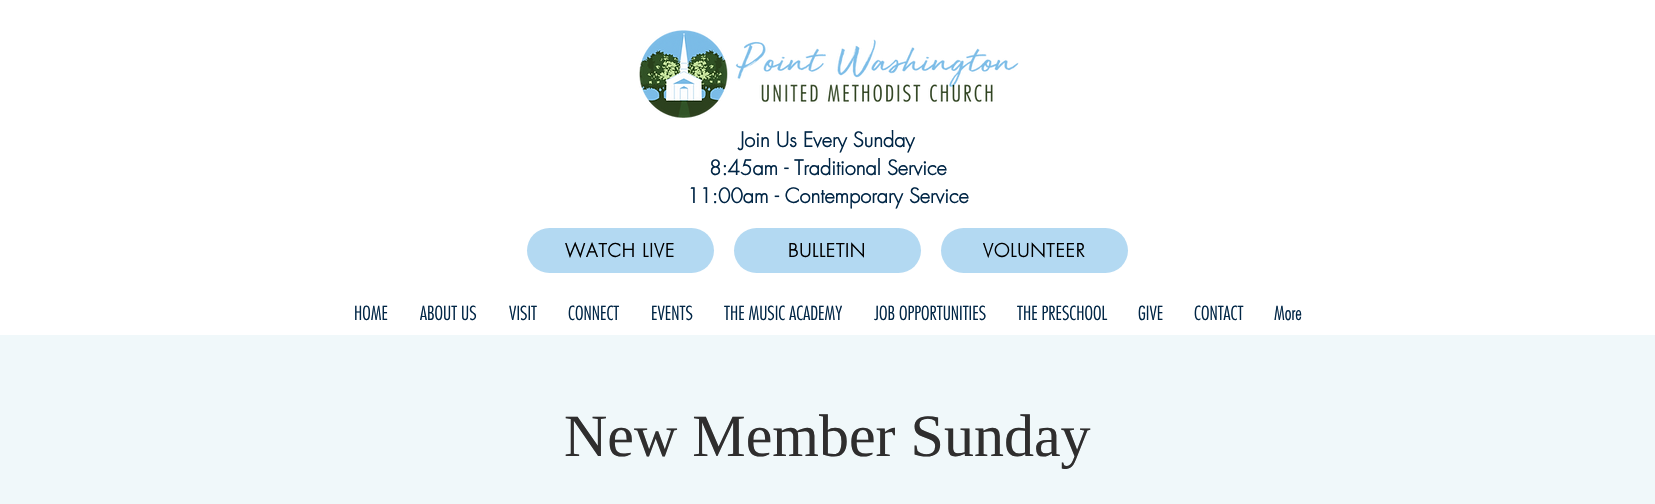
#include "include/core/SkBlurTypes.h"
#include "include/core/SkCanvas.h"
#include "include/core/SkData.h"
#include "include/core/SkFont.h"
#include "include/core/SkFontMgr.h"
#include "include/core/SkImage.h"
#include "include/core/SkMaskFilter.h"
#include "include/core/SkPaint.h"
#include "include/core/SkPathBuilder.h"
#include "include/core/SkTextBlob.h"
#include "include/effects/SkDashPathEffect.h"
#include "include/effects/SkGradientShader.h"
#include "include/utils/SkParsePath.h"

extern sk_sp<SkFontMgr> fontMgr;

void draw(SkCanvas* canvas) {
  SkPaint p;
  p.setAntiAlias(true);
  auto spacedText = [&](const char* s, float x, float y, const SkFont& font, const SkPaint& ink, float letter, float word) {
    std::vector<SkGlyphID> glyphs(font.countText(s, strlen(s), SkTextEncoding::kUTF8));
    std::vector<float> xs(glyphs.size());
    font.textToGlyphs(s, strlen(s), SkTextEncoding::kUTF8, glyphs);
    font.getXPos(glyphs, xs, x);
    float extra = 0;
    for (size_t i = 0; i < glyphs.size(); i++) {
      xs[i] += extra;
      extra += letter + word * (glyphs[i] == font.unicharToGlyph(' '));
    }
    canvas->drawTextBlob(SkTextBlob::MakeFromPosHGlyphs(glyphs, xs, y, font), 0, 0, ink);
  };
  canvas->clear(SK_ColorWHITE);
  canvas->drawImageRect(SkImages::DeferredFromEncodedData(SkData::MakeFromFileName("images/1.png")), SkRect::MakeLTRB(639, 30, 1019, 118), SkSamplingOptions());
  p.setColor(SkColorSetRGB(179, 217, 242));
  canvas->drawRoundRect(SkRect::MakeLTRB(527, 228, 714, 273), 22.5f, 22.5f, p);
  canvas->drawRoundRect(SkRect::MakeLTRB(734, 228, 921, 273), 22.5f, 22.5f, p);
  canvas->drawRoundRect(SkRect::MakeLTRB(941, 228, 1128, 273), 22.5f, 22.5f, p);
  p.setColor(SkColorSetRGB(240, 248, 250));
  canvas->drawRect(SkRect::MakeLTRB(0, 335, 1655, 504), p);
  SkFont font1(fontMgr->matchFamilyStyle("futura", SkFontStyle::Bold()), 20);
  font1.setSubpixel(true);
  p.setColor(SkColorSetRGB(1, 38, 70));
  canvas->drawString("Join Us Every Sunday", 740, 147, font1, p);
  canvas->drawString("8:45am - Traditional Service", 709, 175, font1, p);
  canvas->drawString("11:00am - Contemporary Service", 687, 203, font1, p);
  SkFont font2(fontMgr->matchFamilyStyle("futura", SkFontStyle::Bold()), 18);
  font2.setSubpixel(true);
  p.setColor(SK_ColorBLACK);
  spacedText("WATCH LIVE", 565, 257, font2, p, 1, 0);
  spacedText("BULLETIN", 788, 257, font2, p, 1, 0);
  spacedText("VOLUNTEER", 983, 257, font2, p, 1, 0);
  SkFont font3(fontMgr->matchFamilyStyle("Futura", SkFontStyle(300, SkFontStyle::kNormal_Width, SkFontStyle::kUpright_Slant)), 19);
  font3.setSubpixel(true);
  p.setColor(SkColorSetRGB(1, 38, 70));
  canvas->drawString("HOME", 354, 320, font3, p);
  canvas->drawString("ABOUT US", 420, 320, font3, p);
  canvas->drawString("VISIT", 509, 320, font3, p);
  canvas->drawString("CONNECT", 568, 320, font3, p);
  canvas->drawString("EVENTS", 651, 320, font3, p);
  canvas->drawString("THE MUSIC ACADEMY", 724, 320, font3, p);
  canvas->drawString("JOB OPPORTUNITIES", 874, 320, font3, p);
  canvas->drawString("THE PRESCHOOL", 1017, 320, font3, p);
  canvas->drawString("GIVE", 1138, 320, font3, p);
  canvas->drawString("CONTACT", 1194, 320, font3, p);
  canvas->drawString("More", 1274, 320, font3, p);
  SkFont font4(fontMgr->matchFamilyStyle("Liberation Serif", SkFontStyle::Normal()), 60);
  font4.setSubpixel(true);
  p.setColor(SkColorSetRGB(47, 46, 46));
  canvas->drawString("New Member Sunday", 564, 456, font4, p);
}
